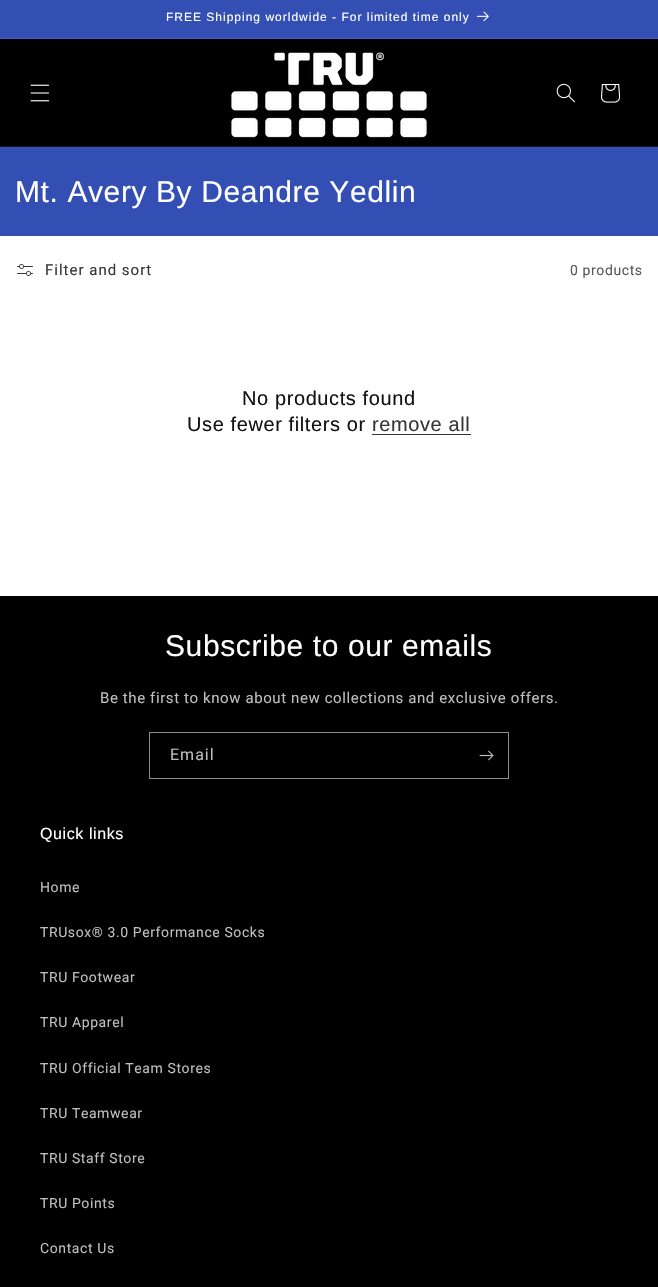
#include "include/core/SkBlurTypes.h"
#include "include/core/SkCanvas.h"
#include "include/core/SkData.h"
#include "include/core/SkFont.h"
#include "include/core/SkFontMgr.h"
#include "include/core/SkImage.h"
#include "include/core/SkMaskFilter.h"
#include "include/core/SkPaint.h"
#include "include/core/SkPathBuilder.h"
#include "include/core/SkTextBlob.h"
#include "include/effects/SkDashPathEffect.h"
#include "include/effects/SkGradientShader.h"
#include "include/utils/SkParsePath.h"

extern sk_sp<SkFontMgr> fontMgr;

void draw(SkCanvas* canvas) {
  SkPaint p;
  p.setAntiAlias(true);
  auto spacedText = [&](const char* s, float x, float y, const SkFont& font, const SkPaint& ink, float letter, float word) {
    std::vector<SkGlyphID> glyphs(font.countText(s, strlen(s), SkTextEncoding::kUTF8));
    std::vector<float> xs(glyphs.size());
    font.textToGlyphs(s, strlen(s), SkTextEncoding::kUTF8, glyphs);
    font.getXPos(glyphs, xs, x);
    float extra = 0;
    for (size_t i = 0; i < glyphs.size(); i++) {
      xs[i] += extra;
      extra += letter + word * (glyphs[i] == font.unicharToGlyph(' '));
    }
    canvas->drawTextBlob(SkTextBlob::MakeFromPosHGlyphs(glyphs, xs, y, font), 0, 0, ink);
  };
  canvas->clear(SK_ColorWHITE);
  p.setColor(SkColorSetRGB(51, 79, 180));
  canvas->drawRect(SkRect::MakeLTRB(0, 0, 658, 38), p);
  p.setColor(SkColorSetRGB(67, 93, 186));
  canvas->drawRect(SkRect::MakeLTRB(0, 38, 658, 39), p);
  canvas->drawImageRect(SkImages::DeferredFromEncodedData(SkData::MakeFromFileName("images/1.png")), SkRect::MakeLTRB(477, 11, 489, 22), SkSamplingOptions());
  p.setColor(SK_ColorBLACK);
  canvas->drawRect(SkRect::MakeLTRB(0, 39, 658, 146), p);
  p.setColor(SkColorSetRGB(20, 20, 20));
  canvas->drawRect(SkRect::MakeLTRB(0, 146, 658, 147), p);
  canvas->drawImageRect(SkImages::DeferredFromEncodedData(SkData::MakeFromFileName("images/2.png")), SkRect::MakeLTRB(30, 84, 50, 102), SkSamplingOptions());
  canvas->drawImageRect(SkImages::DeferredFromEncodedData(SkData::MakeFromFileName("images/3.png")), SkRect::MakeLTRB(231, 52, 427, 138), SkSamplingOptions());
  canvas->drawImageRect(SkImages::DeferredFromEncodedData(SkData::MakeFromFileName("images/4.png")), SkRect::MakeLTRB(556, 83, 575, 103), SkSamplingOptions());
  canvas->drawImageRect(SkImages::DeferredFromEncodedData(SkData::MakeFromFileName("images/5.png")), SkRect::MakeLTRB(601, 84, 621, 103), SkSamplingOptions());
  p.setColor(SkColorSetRGB(51, 79, 180));
  canvas->drawRect(SkRect::MakeLTRB(0, 147, 658, 236), p);
  canvas->drawImageRect(SkImages::DeferredFromEncodedData(SkData::MakeFromFileName("images/6.png")), SkRect::MakeLTRB(17, 264, 33, 276), SkSamplingOptions());
  p.setColor(SkColorSetRGB(54, 54, 54));
  canvas->drawRect(SkRect::MakeLTRB(372, 434, 471, 435), p);
  p.setColor(SK_ColorBLACK);
  canvas->drawRect(SkRect::MakeLTRB(0, 596, 658, 1287), p);
  p.setStyle(SkPaint::kStroke_Style);
  p.setStrokeWidth(1);
  p.setColor(SkColorSetRGB(140, 140, 140));
  canvas->drawRect(SkRect::MakeLTRB(149.5f, 732.5f, 508.5f, 778.5f), p);
  canvas->drawImageRect(SkImages::DeferredFromEncodedData(SkData::MakeFromFileName("images/7.png")), SkRect::MakeLTRB(479, 750, 494, 761), SkSamplingOptions());
  SkFont font1(fontMgr->matchFamilyStyle("Liberation Sans", SkFontStyle::Normal()), 12);
  font1.setSubpixel(true);
  p.setStyle(SkPaint::kFill_Style);
  p.setColor(SK_ColorWHITE);
  spacedText("FREE Shipping worldwide - For limited time only", 166, 21, font1, p, 1, 0);
  SkFont font2(fontMgr->matchFamilyStyle("Liberation Sans", SkFontStyle::Normal()), 30);
  font2.setSubpixel(true);
  spacedText("Mt. Avery By Deandre Yedlin", 15, 202, font2, p, 0.6f, 0);
  SkFont font3(fontMgr->matchFamilyStyle("Roboto", SkFontStyle::Normal()), 15);
  font3.setSubpixel(true);
  p.setColor(SkColorSetRGB(54, 54, 54));
  spacedText("Filter and sort", 45, 275, font3, p, 1, 0);
  SkFont font4(fontMgr->matchFamilyStyle("Roboto", SkFontStyle::Normal()), 14);
  font4.setSubpixel(true);
  p.setColor(SkColorSetRGB(89, 89, 89));
  spacedText("0 products", 570, 275, font4, p, 0.6f, 0);
  SkFont font5(fontMgr->matchFamilyStyle("Liberation Sans", SkFontStyle::Normal()), 20);
  font5.setSubpixel(true);
  p.setColor(SkColorSetRGB(18, 18, 18));
  spacedText("No products found", 242, 405, font5, p, 0.6f, 0);
  spacedText("Use fewer filters or", 187, 431, font5, p, 0.6f, 0);
  p.setColor(SkColorSetRGB(54, 54, 54));
  spacedText("remove all", 372, 431, font5, p, 0.6f, 0);
  p.setColor(SK_ColorWHITE);
  spacedText("Subscribe to our emails", 165, 656, font2, p, 0.6f, 0);
  p.setColor(SkColorSetRGB(191, 191, 191));
  spacedText("Be the first to know about new collections and exclusive offers.", 100, 703, font3, p, 0.6f, 0);
  SkFont font6(fontMgr->matchFamilyStyle("Roboto", SkFontStyle::Normal()), 16);
  font6.setSubpixel(true);
  spacedText("Email", 170, 760, font6, p, 1, 0);
  SkFont font7(fontMgr->matchFamilyStyle("Liberation Sans", SkFontStyle::Normal()), 16);
  font7.setSubpixel(true);
  p.setColor(SK_ColorWHITE);
  spacedText("Quick links", 40, 839, font7, p, 0.6f, 0);
  p.setColor(SkColorSetRGB(191, 191, 191));
  spacedText("Home", 40, 892, font4, p, 0.6f, 0);
  spacedText("TRUsox® 3.0 Performance Socks", 40, 937, font4, p, 0.6f, 0);
  spacedText("TRU Footwear", 40, 982, font4, p, 0.6f, 0);
  spacedText("TRU Apparel", 40, 1027, font4, p, 0.6f, 0);
  spacedText("TRU Official Team Stores", 40, 1073, font4, p, 0.6f, 0);
  spacedText("TRU Teamwear", 40, 1118, font4, p, 0.6f, 0);
  spacedText("TRU Staff Store", 40, 1163, font4, p, 0.6f, 0);
  spacedText("TRU Points", 40, 1208, font4, p, 0.6f, 0);
  spacedText("Contact Us", 40, 1253, font4, p, 0.6f, 0);
}
